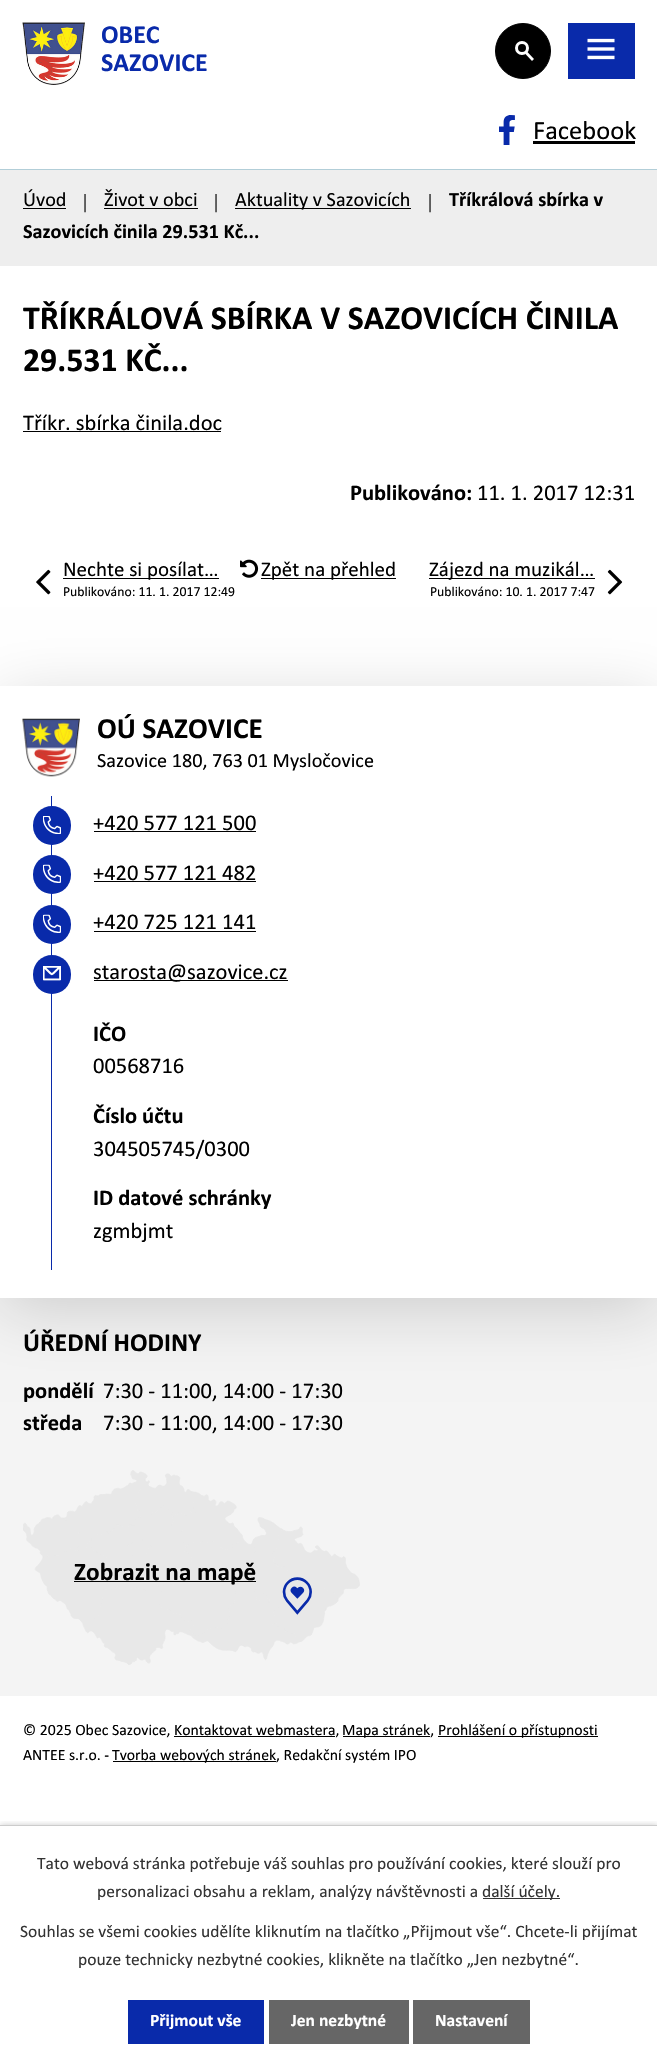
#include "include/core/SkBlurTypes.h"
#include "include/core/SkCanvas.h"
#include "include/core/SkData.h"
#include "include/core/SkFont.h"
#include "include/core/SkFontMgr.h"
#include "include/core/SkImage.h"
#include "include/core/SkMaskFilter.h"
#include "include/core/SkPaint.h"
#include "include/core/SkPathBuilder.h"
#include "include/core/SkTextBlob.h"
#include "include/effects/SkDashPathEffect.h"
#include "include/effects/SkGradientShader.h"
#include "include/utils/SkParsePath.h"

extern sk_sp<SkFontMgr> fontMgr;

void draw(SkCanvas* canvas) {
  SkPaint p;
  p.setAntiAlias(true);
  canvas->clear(SK_ColorWHITE);
  p.setColor(SkColorSetRGB(9, 42, 170));
  canvas->drawRect(SkRect::MakeLTRB(568, 23, 635, 79), p);
  canvas->drawImageRect(SkImages::DeferredFromEncodedData(SkData::MakeFromFileName("images/1.png")), SkRect::MakeLTRB(587, 38, 615, 60), SkSamplingOptions());
  p.setColor(SkColorSetRGB(178, 206, 216));
  canvas->drawRect(SkRect::MakeLTRB(0, 169, 657, 170), p);
  canvas->drawImageRect(SkImages::DeferredFromEncodedData(SkData::MakeFromFileName("images/2.png")), SkRect::MakeLTRB(22, 22, 85, 85), SkSamplingOptions());
  p.setColor(SK_ColorBLACK);
  canvas->drawCircle(523, 51, 27.5f, p);
  p.setStyle(SkPaint::kStroke_Style);
  p.setStrokeWidth(1);
  canvas->drawCircle(523, 51, 27.5f, p);
  p.setStrokeWidth(3);
  p.setColor(SK_ColorWHITE);
  canvas->drawCircle(522, 48, 5.5f, p);
  p.setStyle(SkPaint::kFill_Style);
  canvas->drawPath(SkPathBuilder().moveTo(527, 51.5f).lineTo(534, 59).lineTo(532, 61).lineTo(525, 53.5f).close().detach(), p);
  canvas->drawImageRect(SkImages::DeferredFromEncodedData(SkData::MakeFromFileName("images/3.png")), SkRect::MakeLTRB(499, 115, 515, 145), SkSamplingOptions());
  p.setColor(SK_ColorBLACK);
  canvas->drawRect(SkRect::MakeLTRB(533, 141, 635, 144), p);
  p.setColor(SkColorSetRGB(238, 238, 238));
  canvas->drawRect(SkRect::MakeLTRB(0, 170, 657, 266), p);
  p.setColor(SK_ColorBLACK);
  canvas->drawRect(SkRect::MakeLTRB(23, 208, 66, 209), p);
  canvas->drawRect(SkRect::MakeLTRB(104, 208, 198, 209), p);
  canvas->drawRect(SkRect::MakeLTRB(235, 208, 411, 209), p);
  canvas->drawRect(SkRect::MakeLTRB(23, 431, 221, 432), p);
  canvas->drawImageRect(SkImages::DeferredFromEncodedData(SkData::MakeFromFileName("images/4.png")), SkRect::MakeLTRB(36, 569, 51, 595), SkSamplingOptions());
  canvas->drawRect(SkRect::MakeLTRB(63, 578, 219, 579), p);
  canvas->drawImageRect(SkImages::DeferredFromEncodedData(SkData::MakeFromFileName("images/5.png")), SkRect::MakeLTRB(240, 559, 259, 578), SkSamplingOptions());
  canvas->drawRect(SkRect::MakeLTRB(261, 578, 396, 579), p);
  canvas->drawRect(SkRect::MakeLTRB(429, 578, 595, 579), p);
  canvas->drawImageRect(SkImages::DeferredFromEncodedData(SkData::MakeFromFileName("images/6.png")), SkRect::MakeLTRB(607, 569, 623, 595), SkSamplingOptions());
  p.setColor(SkColorSetRGB(244, 244, 244));
  canvas->drawRect(SkRect::MakeLTRB(0, 1298, 657, 1696), p);
  p.setColor(SkColorSetARGB(41, 0, 0, 0));
  p.setMaskFilter(SkMaskFilter::MakeBlur(kNormal_SkBlurStyle, 31));
  canvas->drawRect(SkRect::MakeLTRB(0, 699, 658, 1310), p);
  p.setMaskFilter(nullptr);
  p.setColor(SK_ColorWHITE);
  canvas->drawRect(SkRect::MakeLTRB(0, 686, 657, 1298), p);
  canvas->drawImageRect(SkImages::DeferredFromEncodedData(SkData::MakeFromFileName("images/7.png")), SkRect::MakeLTRB(22, 718, 80, 777), SkSamplingOptions());
  p.setColor(SkColorSetRGB(9, 42, 170));
  canvas->drawRect(SkRect::MakeLTRB(51, 796, 52, 1270), p);
  canvas->drawRoundRect(SkRect::MakeLTRB(33, 806, 71, 845), 19, 19, p);
  canvas->drawImageRect(SkImages::DeferredFromEncodedData(SkData::MakeFromFileName("images/8.png")), SkRect::MakeLTRB(43, 816, 61, 834), SkSamplingOptions());
  p.setColor(SK_ColorBLACK);
  canvas->drawRect(SkRect::MakeLTRB(94, 831, 256, 832), p);
  p.setColor(SkColorSetRGB(9, 42, 170));
  canvas->drawRoundRect(SkRect::MakeLTRB(33, 855, 71, 894), 19, 19, p);
  canvas->drawImageRect(SkImages::DeferredFromEncodedData(SkData::MakeFromFileName("images/9.png")), SkRect::MakeLTRB(43, 864, 61, 883), SkSamplingOptions());
  p.setColor(SK_ColorBLACK);
  canvas->drawRect(SkRect::MakeLTRB(94, 881, 256, 882), p);
  p.setColor(SkColorSetRGB(9, 42, 170));
  canvas->drawRoundRect(SkRect::MakeLTRB(33, 905, 71, 944), 19, 19, p);
  canvas->drawImageRect(SkImages::DeferredFromEncodedData(SkData::MakeFromFileName("images/9.png")), SkRect::MakeLTRB(43, 914, 61, 933), SkSamplingOptions());
  p.setColor(SK_ColorBLACK);
  canvas->drawRect(SkRect::MakeLTRB(94, 931, 256, 932), p);
  p.setColor(SkColorSetRGB(9, 42, 170));
  canvas->drawRoundRect(SkRect::MakeLTRB(33, 955, 71, 994), 19, 19, p);
  canvas->drawImageRect(SkImages::DeferredFromEncodedData(SkData::MakeFromFileName("images/10.png")), SkRect::MakeLTRB(43, 966, 61, 981), SkSamplingOptions());
  p.setColor(SK_ColorBLACK);
  canvas->drawRect(SkRect::MakeLTRB(94, 980, 288, 981), p);
  canvas->drawImageRect(SkImages::DeferredFromEncodedData(SkData::MakeFromFileName("images/11.png")), SkRect::MakeLTRB(23, 1470, 360, 1665), SkSamplingOptions());
  canvas->drawRect(SkRect::MakeLTRB(74, 1581, 256, 1582), p);
  canvas->drawRect(SkRect::MakeLTRB(343, 1736, 430, 1737), p);
  canvas->drawRect(SkRect::MakeLTRB(438, 1736, 598, 1737), p);
  canvas->drawRect(SkRect::MakeLTRB(174, 1736, 335, 1737), p);
  canvas->drawRect(SkRect::MakeLTRB(113, 1761, 276, 1762), p);
  canvas->save();
  canvas->clipRect(SkRect::MakeLTRB(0, 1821, 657, 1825));
  p.setColor(SkColorSetARGB(51, 0, 0, 0));
  p.setMaskFilter(SkMaskFilter::MakeBlur(kNormal_SkBlurStyle, 3));
  canvas->drawRect(SkRect::MakeLTRB(0, 1825, 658, 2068), p);
  p.setMaskFilter(nullptr);
  canvas->restore();
  p.setColor(SkColorSetRGB(204, 204, 204));
  canvas->drawRect(SkRect::MakeLTRB(0, 1825, 657, 1826), p);
  p.setColor(SkColorSetRGB(51, 51, 51));
  canvas->drawRect(SkRect::MakeLTRB(483, 1898, 560, 1899), p);
  p.setColor(SkColorSetRGB(9, 42, 170));
  canvas->drawRect(SkRect::MakeLTRB(128, 2000, 264, 2044), p);
  p.setColor(SkColorSetRGB(102, 102, 102));
  canvas->drawRect(SkRect::MakeLTRB(269, 2000, 409, 2044), p);
  canvas->drawRect(SkRect::MakeLTRB(413, 2000, 530, 2044), p);
  SkFont font1(fontMgr->matchFamilyStyle("Calibri", SkFontStyle::Bold()), 26);
  font1.setSubpixel(true);
  p.setColor(SkColorSetRGB(9, 42, 170));
  canvas->drawString("OBEC", 101, 43, font1, p);
  canvas->drawString("SAZOVICE", 101, 71, font1, p);
  SkFont font2(fontMgr->matchFamilyStyle("Calibri", SkFontStyle::Normal()), 26.5f);
  font2.setSubpixel(true);
  p.setColor(SK_ColorBLACK);
  canvas->drawString("Facebook", 533, 139, font2, p);
  SkFont font3(fontMgr->matchFamilyStyle("Calibri", SkFontStyle::Normal()), 20.25f);
  font3.setSubpixel(true);
  canvas->drawString("Úvod", 23, 206, font3, p);
  SkFont font4(fontMgr->matchFamilyStyle("Liberation Serif", SkFontStyle::Normal()), 20.25f);
  font4.setSubpixel(true);
  canvas->drawString("|", 83, 208, font4, p);
  canvas->drawString("Život v obci", 104, 206, font3, p);
  canvas->drawString("|", 214, 208, font4, p);
  canvas->drawString("Aktuality v Sazovicích", 235, 206, font3, p);
  canvas->drawString("|", 428, 208, font4, p);
  SkFont font5(fontMgr->matchFamilyStyle("Calibri", SkFontStyle::Bold()), 20.25f);
  font5.setSubpixel(true);
  canvas->drawString("Tříkrálová sbírka v", 449, 206, font5, p);
  canvas->drawString("Sazovicích činila 29.531 Kč...", 23, 238, font5, p);
  SkFont font6(fontMgr->matchFamilyStyle("Calibri", SkFontStyle::Bold()), 33.75f);
  font6.setSubpixel(true);
  canvas->drawString("TŘÍKRÁLOVÁ SBÍRKA V SAZOVICÍCH ČINILA", 23, 329, font6, p);
  canvas->drawString("29.531 KČ...", 23, 371, font6, p);
  SkFont font7(fontMgr->matchFamilyStyle("Calibri", SkFontStyle::Normal()), 22.5f);
  font7.setSubpixel(true);
  canvas->drawString("Tříkr. sbírka činila.doc", 23, 430, font7, p);
  SkFont font8(fontMgr->matchFamilyStyle("Calibri", SkFontStyle::Bold()), 22.5f);
  font8.setSubpixel(true);
  canvas->drawString("Publikováno:", 350, 500, font8, p);
  canvas->drawString("11. 1. 2017 12:31", 477, 500, font7, p);
  SkFont font9(fontMgr->matchFamilyStyle("Calibri", SkFontStyle::Normal()), 21);
  font9.setSubpixel(true);
  canvas->drawString("Nechte si posílat…", 63, 576, font9, p);
  SkFont font10(fontMgr->matchFamilyStyle("Calibri", SkFontStyle::Normal()), 13.75f);
  font10.setSubpixel(true);
  canvas->drawString("Publikováno: 11. 1. 2017 12:49", 63, 596, font10, p);
  canvas->drawString("Zpět na přehled", 261, 576, font9, p);
  canvas->drawString("Zájezd na muzikál…", 429, 576, font9, p);
  canvas->drawString("Publikováno: 10. 1. 2017 7:47", 430, 596, font10, p);
  SkFont font11(fontMgr->matchFamilyStyle("Calibri", SkFontStyle::Bold()), 29.25f);
  font11.setSubpixel(true);
  canvas->drawString("OÚ SAZOVICE", 97, 738, font11, p);
  canvas->drawString("Sazovice 180, 763 01 Mysločovice", 97, 767, font3, p);
  canvas->drawString("+420 577 121 500", 93, 830, font7, p);
  canvas->drawString("+420 577 121 482", 93, 880, font7, p);
  canvas->drawString("+420 725 121 141", 93, 929, font7, p);
  canvas->drawString("starosta@sazovice.cz", 93, 979, font7, p);
  canvas->drawString("IČO", 93, 1041, font8, p);
  canvas->drawString("00568716", 93, 1073, font7, p);
  canvas->drawString("Číslo účtu", 93, 1123, font8, p);
  canvas->drawString("304505745/0300", 93, 1156, font7, p);
  canvas->drawString("ID datové schránky", 93, 1205, font8, p);
  canvas->drawString("zgmbjmt", 93, 1238, font7, p);
  canvas->drawString("ÚŘEDNÍ HODINY", 23, 1351, font1, p);
  canvas->drawString("pondělí", 23, 1398, font8, p);
  canvas->drawString("7:30 - 11:00, 14:00 - 17:30", 103, 1398, font7, p);
  canvas->drawString("středa", 23, 1430, font8, p);
  canvas->drawString("7:30 - 11:00, 14:00 - 17:30", 103, 1430, font7, p);
  SkFont font12(fontMgr->matchFamilyStyle("Calibri", SkFontStyle::Bold()), 25.25f);
  font12.setSubpixel(true);
  canvas->drawString("Zobrazit na mapě", 74, 1580, font12, p);
  SkFont font13(fontMgr->matchFamilyStyle("Calibri", SkFontStyle::Normal()), 15.75f);
  font13.setSubpixel(true);
  canvas->drawString("© 2025 Obec Sazovice, Kontaktovat webmastera,", 23, 1735, font13, p);
  canvas->drawString("Mapa stránek,", 342, 1735, font13, p);
  canvas->drawString("Prohlášení o přístupnosti", 438, 1735, font13, p);
  canvas->drawString("ANTEE s.r.o. -", 23, 1760, font13, p);
  canvas->drawString("Tvorba webových stránek, Redakční systém IPO", 112, 1760, font13, p);
  SkFont font14(fontMgr->matchFamilyStyle("Calibri", SkFontStyle::Normal()), 17.5f);
  font14.setSubpixel(true);
  p.setColor(SkColorSetRGB(51, 51, 51));
  canvas->drawString("Tato webová stránka potřebuje váš souhlas pro používání cookies, které slouží pro", 37, 1869, font14, p);
  canvas->drawString("personalizaci obsahu a reklam, analýzy návštěvnosti a", 97, 1897, font14, p);
  canvas->drawString("další účely.", 482, 1897, font14, p);
  canvas->drawString("Souhlas se všemi cookies udělíte kliknutím na tlačítko „Přijmout vše“. Chcete-li přijímat", 20, 1937, font14, p);
  canvas->drawString("pouze technicky nezbytné cookies, klikněte na tlačítko „Jen nezbytné“.", 78, 1965, font14, p);
  SkFont font15(fontMgr->matchFamilyStyle("Calibri", SkFontStyle::Bold()), 17.5f);
  font15.setSubpixel(true);
  p.setColor(SK_ColorWHITE);
  canvas->drawString("Přijmout vše", 150, 2026, font15, p);
  canvas->drawString("Jen nezbytné", 291, 2026, font15, p);
  canvas->drawString("Nastavení", 435, 2026, font15, p);
}
